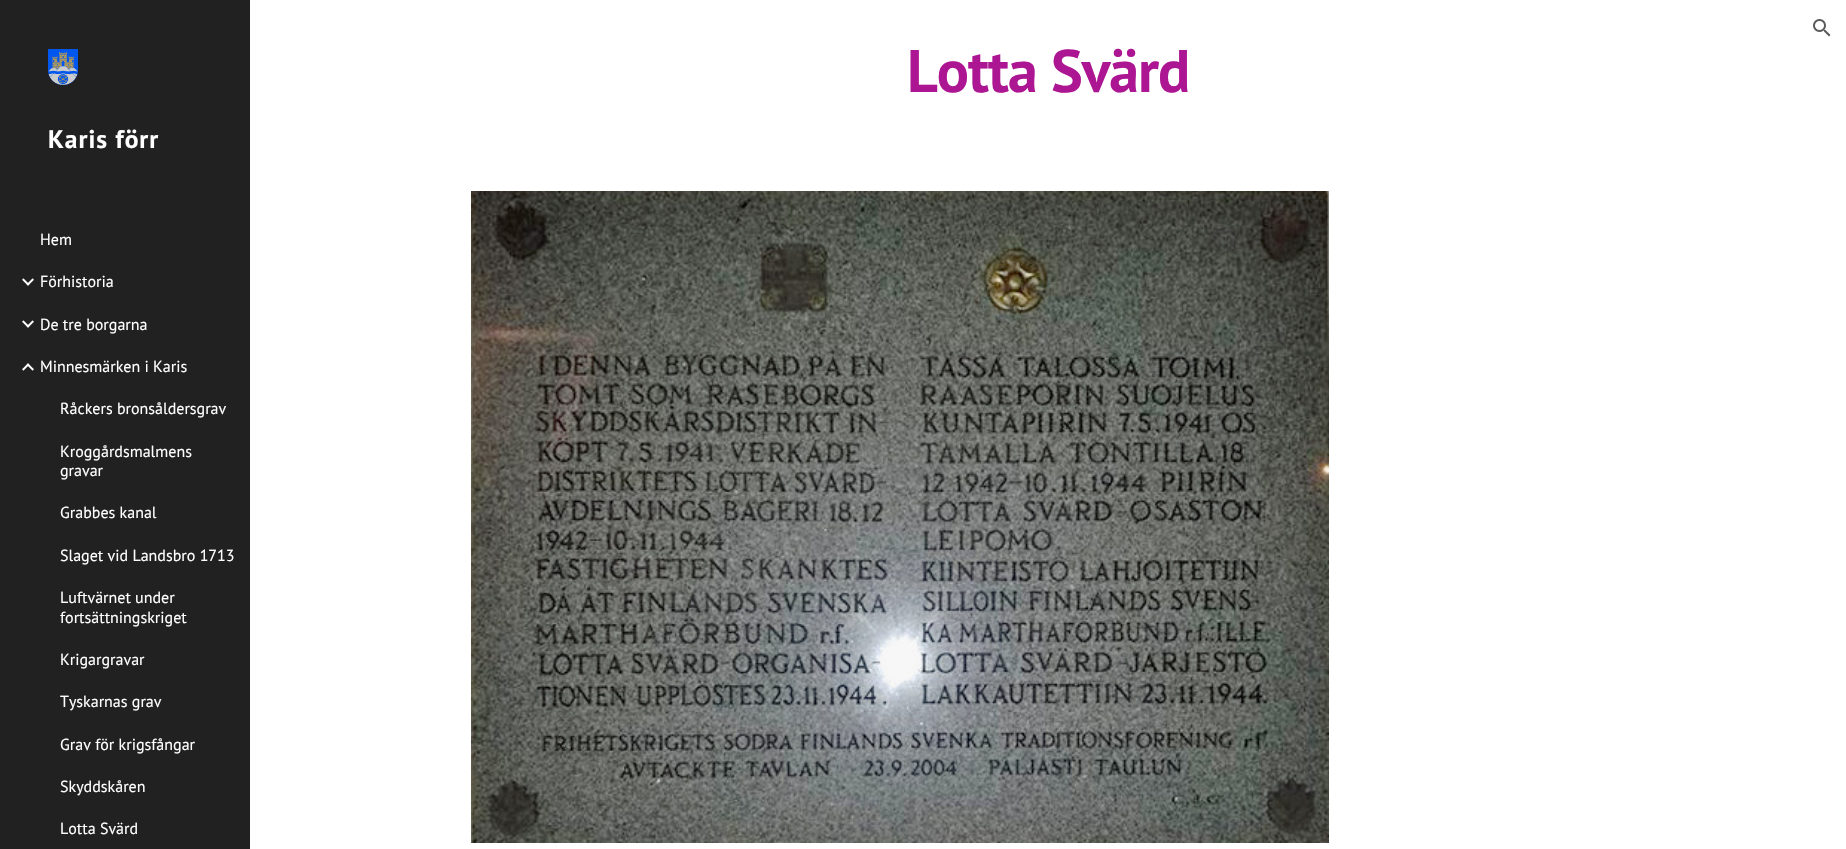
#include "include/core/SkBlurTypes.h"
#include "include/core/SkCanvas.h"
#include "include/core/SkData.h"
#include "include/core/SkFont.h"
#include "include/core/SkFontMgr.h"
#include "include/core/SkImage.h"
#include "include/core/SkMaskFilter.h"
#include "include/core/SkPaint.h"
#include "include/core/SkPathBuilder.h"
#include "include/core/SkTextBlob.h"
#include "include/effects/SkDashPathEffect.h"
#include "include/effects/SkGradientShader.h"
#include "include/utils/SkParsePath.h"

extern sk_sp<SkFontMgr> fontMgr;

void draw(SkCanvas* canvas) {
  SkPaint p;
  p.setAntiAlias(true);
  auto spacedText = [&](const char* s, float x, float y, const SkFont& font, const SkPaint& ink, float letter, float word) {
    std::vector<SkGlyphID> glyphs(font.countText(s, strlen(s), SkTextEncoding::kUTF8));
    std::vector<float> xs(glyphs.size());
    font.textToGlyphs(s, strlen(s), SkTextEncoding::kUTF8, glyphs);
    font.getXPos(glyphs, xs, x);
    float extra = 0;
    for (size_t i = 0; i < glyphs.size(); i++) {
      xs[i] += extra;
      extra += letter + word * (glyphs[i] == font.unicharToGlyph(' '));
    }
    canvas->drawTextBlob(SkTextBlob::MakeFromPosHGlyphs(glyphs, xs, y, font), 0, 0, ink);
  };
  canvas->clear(SK_ColorWHITE);
  canvas->drawImageRect(SkImages::DeferredFromEncodedData(SkData::MakeFromFileName("images/1.png")), SkRect::MakeLTRB(471, 191, 1329, 843), SkSamplingOptions());
  canvas->drawImageRect(SkImages::DeferredFromEncodedData(SkData::MakeFromFileName("images/2.png")), SkRect::MakeLTRB(1813, 19, 1831, 37), SkSamplingOptions());
  p.setColor(SkColorSetRGB(33, 33, 33));
  canvas->drawRect(SkRect::MakeLTRB(0, 0, 250, 849), p);
  canvas->drawImageRect(SkImages::DeferredFromEncodedData(SkData::MakeFromFileName("images/3.png")), SkRect::MakeLTRB(48, 49, 78, 85), SkSamplingOptions());
  canvas->drawImageRect(SkImages::DeferredFromEncodedData(SkData::MakeFromFileName("images/4.png")), SkRect::MakeLTRB(22, 278, 34, 286), SkSamplingOptions());
  canvas->drawImageRect(SkImages::DeferredFromEncodedData(SkData::MakeFromFileName("images/4.png")), SkRect::MakeLTRB(22, 320, 34, 328), SkSamplingOptions());
  canvas->drawImageRect(SkImages::DeferredFromEncodedData(SkData::MakeFromFileName("images/5.png")), SkRect::MakeLTRB(22, 363, 34, 371), SkSamplingOptions());
  SkFont font1(fontMgr->matchFamilyStyle("PT Sans", SkFontStyle::Bold()), 60);
  font1.setSubpixel(true);
  p.setColor(SkColorSetRGB(173, 22, 146));
  spacedText("Lotta Svärd", 907, 92, font1, p, -1, 0);
  SkFont font2(fontMgr->matchFamilyStyle("PT Sans", SkFontStyle::Bold()), 25.5f);
  font2.setSubpixel(true);
  p.setColor(SK_ColorWHITE);
  spacedText("Karis förr", 48, 148, font2, p, 1, 0);
  SkFont font3(fontMgr->matchFamilyStyle("PT Sans", SkFontStyle::Normal()), 16);
  font3.setSubpixel(true);
  canvas->drawString("Hem", 40, 245, font3, p);
  canvas->drawString("Förhistoria", 40, 287, font3, p);
  canvas->drawString("De tre borgarna", 40, 330, font3, p);
  canvas->drawString("Minnesmärken i Karis", 40, 372, font3, p);
  canvas->drawString("Råckers bronsåldersgrav", 60, 414, font3, p);
  canvas->drawString("Kroggårdsmalmens", 60, 457, font3, p);
  canvas->drawString("gravar", 60, 476, font3, p);
  canvas->drawString("Grabbes kanal", 60, 518, font3, p);
  canvas->drawString("Slaget vid Landsbro 1713", 60, 561, font3, p);
  canvas->drawString("Luftvärnet under", 60, 603, font3, p);
  canvas->drawString("fortsättningskriget", 60, 623, font3, p);
  canvas->drawString("Krigargravar", 60, 665, font3, p);
  canvas->drawString("Tyskarnas grav", 60, 707, font3, p);
  canvas->drawString("Grav för krigsfångar", 60, 750, font3, p);
  canvas->drawString("Skyddskåren", 60, 792, font3, p);
  canvas->drawString("Lotta Svärd", 60, 834, font3, p);
}
